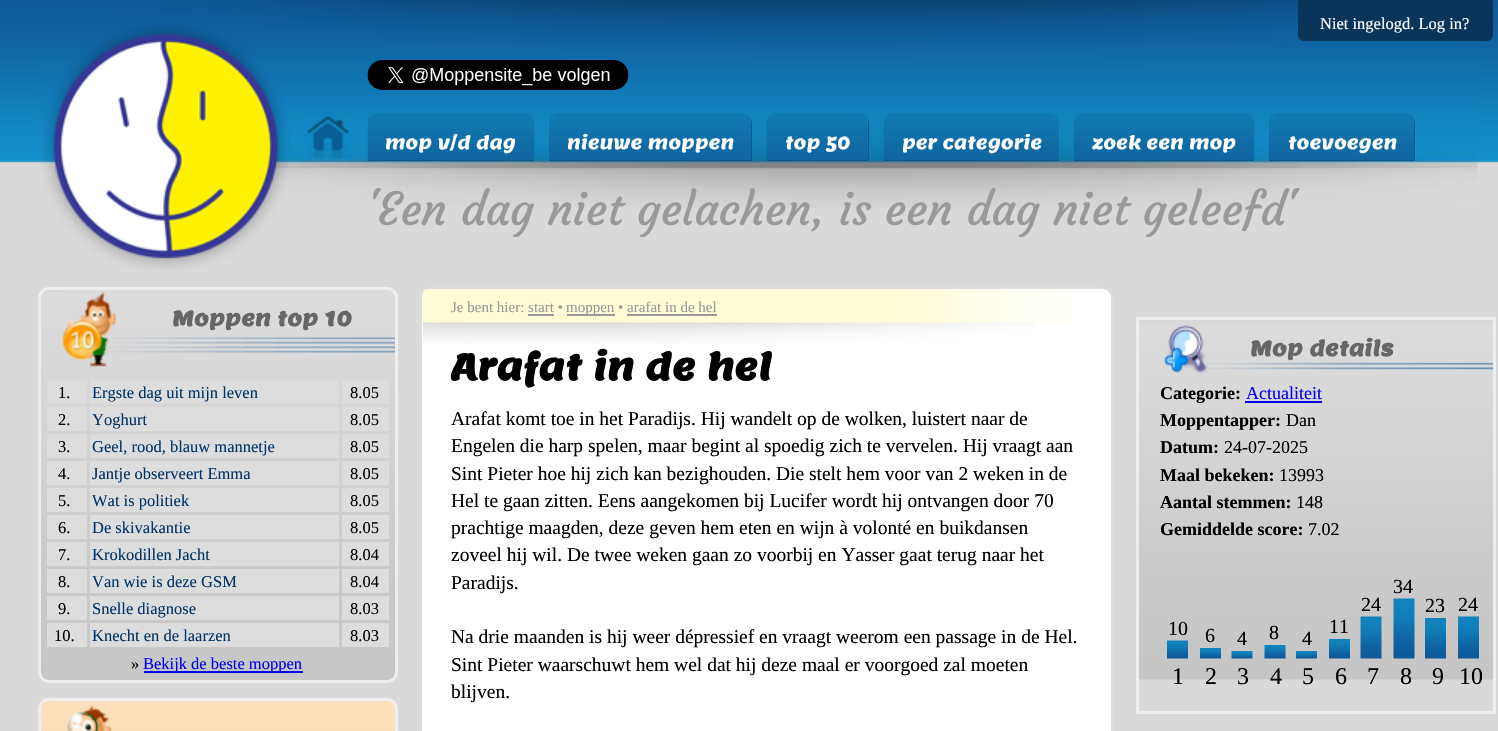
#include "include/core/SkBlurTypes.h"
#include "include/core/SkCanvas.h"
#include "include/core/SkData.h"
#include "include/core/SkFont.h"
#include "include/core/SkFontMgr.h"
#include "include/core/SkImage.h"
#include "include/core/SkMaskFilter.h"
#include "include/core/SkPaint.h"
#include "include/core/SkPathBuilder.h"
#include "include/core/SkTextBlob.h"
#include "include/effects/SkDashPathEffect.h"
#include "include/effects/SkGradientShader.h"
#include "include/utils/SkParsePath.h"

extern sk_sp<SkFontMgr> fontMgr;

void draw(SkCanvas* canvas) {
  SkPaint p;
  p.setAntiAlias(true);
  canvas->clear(SkColorSetRGB(217, 217, 217));
  canvas->drawImageRect(SkImages::DeferredFromEncodedData(SkData::MakeFromFileName("images/1.png")), SkRect::MakeLTRB(0, 0, 1498, 163), SkSamplingOptions());
  canvas->drawImageRect(SkImages::DeferredFromEncodedData(SkData::MakeFromFileName("images/2.png")), SkRect::MakeLTRB(37, 0, 1478, 208), SkSamplingOptions());
  canvas->drawImageRect(SkImages::DeferredFromEncodedData(SkData::MakeFromFileName("images/3.png")), SkRect::MakeLTRB(42, 24, 290, 270), SkSamplingOptions());
  canvas->drawImageRect(SkImages::DeferredFromEncodedData(SkData::MakeFromFileName("images/4.png")), SkRect::MakeLTRB(367, 60, 629, 90), SkSamplingOptions());
  p.setColor(SkColorSetRGB(11, 53, 88));
  canvas->drawPath(SkPathBuilder().moveTo(1298, 0).lineTo(1493, 0).lineTo(1493, 35).cubicTo(1493, 38.5f, 1490.5f, 41, 1487, 41).lineTo(1304, 41).cubicTo(1300.5f, 41, 1298, 38.5f, 1298, 35).close().detach(), p);
  canvas->drawImageRect(SkImages::DeferredFromEncodedData(SkData::MakeFromFileName("images/5.png")), SkRect::MakeLTRB(307, 115, 350, 159), SkSamplingOptions());
  p.setColor(SkColorSetRGB(13, 78, 133));
  canvas->drawPath(SkPathBuilder().moveTo(379, 113).lineTo(523, 113).cubicTo(529, 113, 534, 118, 534, 124).lineTo(534, 161).lineTo(368, 161).lineTo(368, 124).cubicTo(368, 118, 373, 113, 379, 113).close().detach(), p);
  canvas->drawImageRect(SkImages::DeferredFromEncodedData(SkData::MakeFromFileName("images/6.png")), SkRect::MakeLTRB(367, 113, 534, 161), SkSamplingOptions());
  canvas->drawPath(SkPathBuilder().moveTo(560, 113).lineTo(741, 113).cubicTo(747, 113, 752, 118, 752, 124).lineTo(752, 161).lineTo(549, 161).lineTo(549, 124).cubicTo(549, 118, 554, 113, 560, 113).close().detach(), p);
  canvas->drawImageRect(SkImages::DeferredFromEncodedData(SkData::MakeFromFileName("images/7.png")), SkRect::MakeLTRB(549, 113, 752, 161), SkSamplingOptions());
  canvas->drawPath(SkPathBuilder().moveTo(778, 113).lineTo(858, 113).cubicTo(864, 113, 869, 118, 869, 124).lineTo(869, 161).lineTo(767, 161).lineTo(767, 124).cubicTo(767, 118, 772, 113, 778, 113).close().detach(), p);
  canvas->drawImageRect(SkImages::DeferredFromEncodedData(SkData::MakeFromFileName("images/8.png")), SkRect::MakeLTRB(766, 113, 869, 161), SkSamplingOptions());
  canvas->drawPath(SkPathBuilder().moveTo(895, 113).lineTo(1048, 113).cubicTo(1054, 113, 1059, 118, 1059, 124).lineTo(1059, 161).lineTo(884, 161).lineTo(884, 124).cubicTo(884, 118, 889, 113, 895, 113).close().detach(), p);
  canvas->drawImageRect(SkImages::DeferredFromEncodedData(SkData::MakeFromFileName("images/9.png")), SkRect::MakeLTRB(883, 113, 1059, 161), SkSamplingOptions());
  canvas->drawPath(SkPathBuilder().moveTo(1085, 113).lineTo(1243, 113).cubicTo(1249, 113, 1254, 118, 1254, 124).lineTo(1254, 161).lineTo(1074, 161).lineTo(1074, 124).cubicTo(1074, 118, 1079, 113, 1085, 113).close().detach(), p);
  canvas->drawImageRect(SkImages::DeferredFromEncodedData(SkData::MakeFromFileName("images/10.png")), SkRect::MakeLTRB(1074, 113, 1254, 161), SkSamplingOptions());
  canvas->drawPath(SkPathBuilder().moveTo(1280, 113).lineTo(1404, 113).cubicTo(1410, 113, 1415, 118, 1415, 124).lineTo(1415, 161).lineTo(1269, 161).lineTo(1269, 124).cubicTo(1269, 118, 1274, 113, 1280, 113).close().detach(), p);
  canvas->drawImageRect(SkImages::DeferredFromEncodedData(SkData::MakeFromFileName("images/11.png")), SkRect::MakeLTRB(1269, 113, 1415, 161), SkSamplingOptions());
  canvas->drawImageRect(SkImages::DeferredFromEncodedData(SkData::MakeFromFileName("images/12.png")), SkRect::MakeLTRB(40, 289, 398, 683), SkSamplingOptions());
  p.setStyle(SkPaint::kStroke_Style);
  p.setStrokeWidth(3);
  p.setColor(SkColorSetRGB(238, 238, 238));
  canvas->drawRoundRect(SkRect::MakeLTRB(39.5f, 288.5f, 396.5f, 681.5f), 9.5f, 9.5f, p);
  p.setStyle(SkPaint::kFill_Style);
  p.setColor(SkColorSetRGB(221, 221, 221));
  canvas->drawRect(SkRect::MakeLTRB(47, 380, 87, 404), p);
  canvas->drawRect(SkRect::MakeLTRB(90, 380, 339, 404), p);
  canvas->drawRect(SkRect::MakeLTRB(342, 380, 389, 404), p);
  canvas->drawRect(SkRect::MakeLTRB(47, 407, 87, 431), p);
  canvas->drawRect(SkRect::MakeLTRB(90, 407, 339, 431), p);
  canvas->drawRect(SkRect::MakeLTRB(342, 407, 389, 431), p);
  canvas->drawRect(SkRect::MakeLTRB(47, 434, 87, 458), p);
  canvas->drawRect(SkRect::MakeLTRB(90, 434, 339, 458), p);
  canvas->drawRect(SkRect::MakeLTRB(342, 434, 389, 458), p);
  canvas->drawRect(SkRect::MakeLTRB(47, 461, 87, 485), p);
  canvas->drawRect(SkRect::MakeLTRB(90, 461, 339, 485), p);
  canvas->drawRect(SkRect::MakeLTRB(342, 461, 389, 485), p);
  canvas->drawRect(SkRect::MakeLTRB(47, 488, 87, 512), p);
  canvas->drawRect(SkRect::MakeLTRB(90, 488, 339, 512), p);
  canvas->drawRect(SkRect::MakeLTRB(342, 488, 389, 512), p);
  canvas->drawRect(SkRect::MakeLTRB(47, 515, 87, 539), p);
  canvas->drawRect(SkRect::MakeLTRB(90, 515, 339, 539), p);
  canvas->drawRect(SkRect::MakeLTRB(342, 515, 389, 539), p);
  canvas->drawRect(SkRect::MakeLTRB(47, 542, 87, 566), p);
  canvas->drawRect(SkRect::MakeLTRB(90, 542, 339, 566), p);
  canvas->drawRect(SkRect::MakeLTRB(342, 542, 389, 566), p);
  canvas->drawRect(SkRect::MakeLTRB(47, 569, 87, 593), p);
  canvas->drawRect(SkRect::MakeLTRB(90, 569, 339, 593), p);
  canvas->drawRect(SkRect::MakeLTRB(342, 569, 389, 593), p);
  canvas->drawRect(SkRect::MakeLTRB(47, 596, 87, 620), p);
  canvas->drawRect(SkRect::MakeLTRB(90, 596, 339, 620), p);
  canvas->drawRect(SkRect::MakeLTRB(342, 596, 389, 620), p);
  canvas->drawRect(SkRect::MakeLTRB(47, 623, 87, 647), p);
  canvas->drawRect(SkRect::MakeLTRB(90, 623, 339, 647), p);
  canvas->drawRect(SkRect::MakeLTRB(342, 623, 389, 647), p);
  p.setColor(SkColorSetRGB(0, 0, 238));
  canvas->drawRect(SkRect::MakeLTRB(144, 671, 303, 673), p);
  canvas->drawImageRect(SkImages::DeferredFromEncodedData(SkData::MakeFromFileName("images/13.png")), SkRect::MakeLTRB(40, 700, 398, 731), SkSamplingOptions());
  p.setStyle(SkPaint::kStroke_Style);
  p.setColor(SkColorSetRGB(238, 238, 238));
  canvas->drawRoundRect(SkRect::MakeLTRB(39.5f, 699.5f, 396.5f, 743.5f), 9.5f, 9.5f, p);
  p.setStyle(SkPaint::kFill_Style);
  p.setColor(SK_ColorWHITE);
  canvas->drawRoundRect(SkRect::MakeLTRB(421, 288, 1112, 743), 10, 10, p);
  p.setStyle(SkPaint::kStroke_Style);
  p.setStrokeWidth(2);
  p.setColor(SkColorSetRGB(221, 221, 221));
  canvas->drawRoundRect(SkRect::MakeLTRB(421, 288, 1112, 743), 10, 10, p);
  canvas->drawImageRect(SkImages::DeferredFromEncodedData(SkData::MakeFromFileName("images/14.png")), SkRect::MakeLTRB(423, 289, 1072, 344), SkSamplingOptions());
  p.setStyle(SkPaint::kFill_Style);
  p.setColor(SkColorSetRGB(153, 153, 153));
  canvas->drawRect(SkRect::MakeLTRB(567, 314, 615, 316), p);
  canvas->drawRect(SkRect::MakeLTRB(528, 314, 554, 316), p);
  canvas->drawRect(SkRect::MakeLTRB(627, 314, 717, 316), p);
  canvas->drawImageRect(SkImages::DeferredFromEncodedData(SkData::MakeFromFileName("images/15.png")), SkRect::MakeLTRB(1139, 325, 1493, 680), SkSamplingOptions());
  p.setStyle(SkPaint::kStroke_Style);
  p.setStrokeWidth(3);
  p.setColor(SkColorSetRGB(238, 238, 238));
  canvas->drawRect(SkRect::MakeLTRB(1137.5f, 318.5f, 1494.5f, 712.5f), p);
  p.setStyle(SkPaint::kFill_Style);
  p.setColor(SkColorSetRGB(0, 0, 238));
  canvas->drawRect(SkRect::MakeLTRB(1245, 401, 1322, 403), p);
  canvas->drawImageRect(SkImages::DeferredFromEncodedData(SkData::MakeFromFileName("images/16.png")), SkRect::MakeLTRB(1393, 598, 1415, 659), SkSamplingOptions());
  canvas->drawImageRect(SkImages::DeferredFromEncodedData(SkData::MakeFromFileName("images/17.png")), SkRect::MakeLTRB(1360, 616, 1382, 659), SkSamplingOptions());
  canvas->drawImageRect(SkImages::DeferredFromEncodedData(SkData::MakeFromFileName("images/18.png")), SkRect::MakeLTRB(1425, 618, 1446, 659), SkSamplingOptions());
  canvas->drawImageRect(SkImages::DeferredFromEncodedData(SkData::MakeFromFileName("images/19.png")), SkRect::MakeLTRB(1458, 616, 1479, 659), SkSamplingOptions());
  canvas->drawImageRect(SkImages::DeferredFromEncodedData(SkData::MakeFromFileName("images/20.png")), SkRect::MakeLTRB(1167, 640, 1188, 659), SkSamplingOptions());
  canvas->drawImageRect(SkImages::DeferredFromEncodedData(SkData::MakeFromFileName("images/21.png")), SkRect::MakeLTRB(1200, 648, 1221, 659), SkSamplingOptions());
  canvas->drawImageRect(SkImages::DeferredFromEncodedData(SkData::MakeFromFileName("images/22.png")), SkRect::MakeLTRB(1231, 651, 1253, 659), SkSamplingOptions());
  canvas->drawImageRect(SkImages::DeferredFromEncodedData(SkData::MakeFromFileName("images/23.png")), SkRect::MakeLTRB(1264, 645, 1286, 659), SkSamplingOptions());
  canvas->drawImageRect(SkImages::DeferredFromEncodedData(SkData::MakeFromFileName("images/24.png")), SkRect::MakeLTRB(1296, 651, 1317, 659), SkSamplingOptions());
  canvas->drawImageRect(SkImages::DeferredFromEncodedData(SkData::MakeFromFileName("images/25.png")), SkRect::MakeLTRB(1329, 639, 1350, 659), SkSamplingOptions());
  SkFont font1(fontMgr->matchFamilyStyle("Liberation Serif", SkFontStyle::Normal()), 16.5f);
  font1.setSubpixel(true);
  p.setColor(SK_ColorWHITE);
  canvas->drawString("Niet ingelogd. Log in?", 1320, 29, font1, p);
  SkFont font2(fontMgr->matchFamilyStyle("Lemon", SkFontStyle::Normal()), 18);
  font2.setSubpixel(true);
  canvas->drawString("mop v/d dag", 385, 149, font2, p);
  canvas->drawString("nieuwe moppen", 567, 149, font2, p);
  canvas->drawString("top 50", 785, 149, font2, p);
  canvas->drawString("per categorie", 902, 149, font2, p);
  canvas->drawString("zoek een mop", 1092, 149, font2, p);
  canvas->drawString("toevoegen", 1288, 149, font2, p);
  SkFont font3(fontMgr->matchFamilyStyle("Courgette", SkFontStyle::Normal()), 45);
  font3.setSubpixel(true);
  p.setColor(SkColorSetRGB(153, 153, 153));
  canvas->drawString("'Een dag niet gelachen, is een dag niet geleefd'", 367, 225, font3, p);
  SkFont font4(fontMgr->matchFamilyStyle("Lemon", SkFontStyle::Bold()), 21);
  font4.setSubpixel(true);
  p.setColor(SkColorSetRGB(102, 102, 102));
  canvas->drawString("Moppen top 10", 172, 326, font4, p);
  p.setColor(SK_ColorBLACK);
  canvas->drawString("1.", 58, 398, font1, p);
  p.setColor(SkColorSetRGB(0, 51, 102));
  canvas->drawString("Ergste dag uit mijn leven", 92, 398, font1, p);
  p.setColor(SK_ColorBLACK);
  canvas->drawString("8.05", 350, 398, font1, p);
  canvas->drawString("2.", 58, 425, font1, p);
  p.setColor(SkColorSetRGB(0, 51, 102));
  canvas->drawString("Yoghurt", 92, 425, font1, p);
  p.setColor(SK_ColorBLACK);
  canvas->drawString("8.05", 350, 425, font1, p);
  canvas->drawString("3.", 58, 452, font1, p);
  p.setColor(SkColorSetRGB(0, 51, 102));
  canvas->drawString("Geel, rood, blauw mannetje", 92, 452, font1, p);
  p.setColor(SK_ColorBLACK);
  canvas->drawString("8.05", 350, 452, font1, p);
  canvas->drawString("4.", 58, 479, font1, p);
  p.setColor(SkColorSetRGB(0, 51, 102));
  canvas->drawString("Jantje observeert Emma", 92, 479, font1, p);
  p.setColor(SK_ColorBLACK);
  canvas->drawString("8.05", 350, 479, font1, p);
  canvas->drawString("5.", 58, 506, font1, p);
  p.setColor(SkColorSetRGB(0, 51, 102));
  canvas->drawString("Wat is politiek", 92, 506, font1, p);
  p.setColor(SK_ColorBLACK);
  canvas->drawString("8.05", 350, 506, font1, p);
  canvas->drawString("6.", 58, 533, font1, p);
  p.setColor(SkColorSetRGB(0, 51, 102));
  canvas->drawString("De skivakantie", 92, 533, font1, p);
  p.setColor(SK_ColorBLACK);
  canvas->drawString("8.05", 350, 533, font1, p);
  canvas->drawString("7.", 58, 560, font1, p);
  p.setColor(SkColorSetRGB(0, 51, 102));
  canvas->drawString("Krokodillen Jacht", 92, 560, font1, p);
  p.setColor(SK_ColorBLACK);
  canvas->drawString("8.04", 350, 560, font1, p);
  canvas->drawString("8.", 58, 587, font1, p);
  p.setColor(SkColorSetRGB(0, 51, 102));
  canvas->drawString("Van wie is deze GSM", 92, 587, font1, p);
  p.setColor(SK_ColorBLACK);
  canvas->drawString("8.04", 350, 587, font1, p);
  canvas->drawString("9.", 58, 614, font1, p);
  p.setColor(SkColorSetRGB(0, 51, 102));
  canvas->drawString("Snelle diagnose", 92, 614, font1, p);
  p.setColor(SK_ColorBLACK);
  canvas->drawString("8.03", 350, 614, font1, p);
  canvas->drawString("10.", 54, 641, font1, p);
  p.setColor(SkColorSetRGB(0, 51, 102));
  canvas->drawString("Knecht en de laarzen", 92, 641, font1, p);
  p.setColor(SK_ColorBLACK);
  canvas->drawString("8.03", 350, 641, font1, p);
  canvas->drawString("»", 131, 669, font1, p);
  p.setColor(SkColorSetRGB(0, 0, 238));
  canvas->drawString("Bekijk de beste moppen", 143, 669, font1, p);
  SkFont font5(fontMgr->matchFamilyStyle("Liberation Serif", SkFontStyle::Normal()), 15);
  font5.setSubpixel(true);
  p.setColor(SkColorSetRGB(153, 153, 153));
  canvas->drawString("Je bent hier: start •", 451, 312, font5, p);
  canvas->drawString("moppen • arafat in de hel", 566, 312, font5, p);
  SkFont font6(fontMgr->matchFamilyStyle("Lemon", SkFontStyle::Bold()), 36);
  font6.setSubpixel(true);
  p.setColor(SK_ColorBLACK);
  canvas->drawString("Arafat in de hel", 451, 380, font6, p);
  SkFont font7(fontMgr->matchFamilyStyle("Liberation Serif", SkFontStyle::Normal()), 19.5f);
  font7.setSubpixel(true);
  canvas->drawString("Arafat komt toe in het Paradijs. Hij wandelt op de wolken, luistert naar de", 451, 425, font7, p);
  canvas->drawString("Engelen die harp spelen, maar begint al spoedig zich te vervelen. Hij vraagt aan", 451, 452, font7, p);
  canvas->drawString("Sint Pieter hoe hij zich kan bezighouden. Die stelt hem voor van 2 weken in de", 451, 480, font7, p);
  canvas->drawString("Hel te gaan zitten. Eens aangekomen bij Lucifer wordt hij ontvangen door 70", 451, 507, font7, p);
  canvas->drawString("prachtige maagden, deze geven hem eten en wijn à volonté en buikdansen", 451, 534, font7, p);
  canvas->drawString("zoveel hij wil. De twee weken gaan zo voorbij en Yasser gaat terug naar het", 451, 561, font7, p);
  canvas->drawString("Paradijs.", 451, 589, font7, p);
  canvas->drawString("Na drie maanden is hij weer dépressief en vraagt weerom een passage in de Hel.", 451, 643, font7, p);
  canvas->drawString("Sint Pieter waarschuwt hem wel dat hij deze maal er voorgoed zal moeten", 451, 671, font7, p);
  canvas->drawString("blijven.", 451, 698, font7, p);
  p.setColor(SkColorSetRGB(102, 102, 102));
  canvas->drawString("Mop details", 1250, 356, font4, p);
  SkFont font8(fontMgr->matchFamilyStyle("Liberation Serif", SkFontStyle::Bold()), 18);
  font8.setSubpixel(true);
  p.setColor(SK_ColorBLACK);
  canvas->drawString("Categorie:", 1160, 399, font8, p);
  SkFont font9(fontMgr->matchFamilyStyle("Liberation Serif", SkFontStyle::Normal()), 18);
  font9.setSubpixel(true);
  p.setColor(SkColorSetRGB(0, 0, 238));
  canvas->drawString("Actualiteit", 1246, 399, font9, p);
  p.setColor(SK_ColorBLACK);
  canvas->drawString("Moppentapper:", 1160, 426, font8, p);
  canvas->drawString("Dan", 1286, 426, font9, p);
  canvas->drawString("Datum:", 1160, 453, font8, p);
  canvas->drawString("24-07-2025", 1224, 453, font9, p);
  canvas->drawString("Maal bekeken:", 1160, 481, font8, p);
  canvas->drawString("13993", 1279, 481, font9, p);
  canvas->drawString("Aantal stemmen:", 1160, 508, font8, p);
  canvas->drawString("148", 1296, 508, font9, p);
  canvas->drawString("Gemiddelde score:", 1160, 535, font8, p);
  canvas->drawString("7.02", 1308, 535, font9, p);
  SkFont font10(fontMgr->matchFamilyStyle("Liberation Serif", SkFontStyle::Normal()), 20);
  font10.setSubpixel(true);
  canvas->drawString("34", 1393, 593, font10, p);
  canvas->drawString("24", 1361, 611, font10, p);
  canvas->drawString("23", 1425, 612, font10, p);
  canvas->drawString("24", 1458, 611, font10, p);
  canvas->drawString("10", 1168, 635, font10, p);
  canvas->drawString("6", 1205, 642, font10, p);
  canvas->drawString("4", 1237, 645, font10, p);
  canvas->drawString("8", 1269, 639, font10, p);
  canvas->drawString("4", 1302, 645, font10, p);
  canvas->drawString("11", 1329, 633, font10, p);
  SkFont font11(fontMgr->matchFamilyStyle("Liberation Serif", SkFontStyle::Normal()), 24);
  font11.setSubpixel(true);
  canvas->drawString("1", 1172, 684, font11, p);
  canvas->drawString("2", 1205, 684, font11, p);
  canvas->drawString("3", 1237, 684, font11, p);
  canvas->drawString("4", 1270, 684, font11, p);
  canvas->drawString("5", 1302, 684, font11, p);
  canvas->drawString("6", 1335, 684, font11, p);
  canvas->drawString("7", 1367, 684, font11, p);
  canvas->drawString("8", 1400, 684, font11, p);
  canvas->drawString("9", 1432, 684, font11, p);
  canvas->drawString("10", 1459, 684, font11, p);
}
